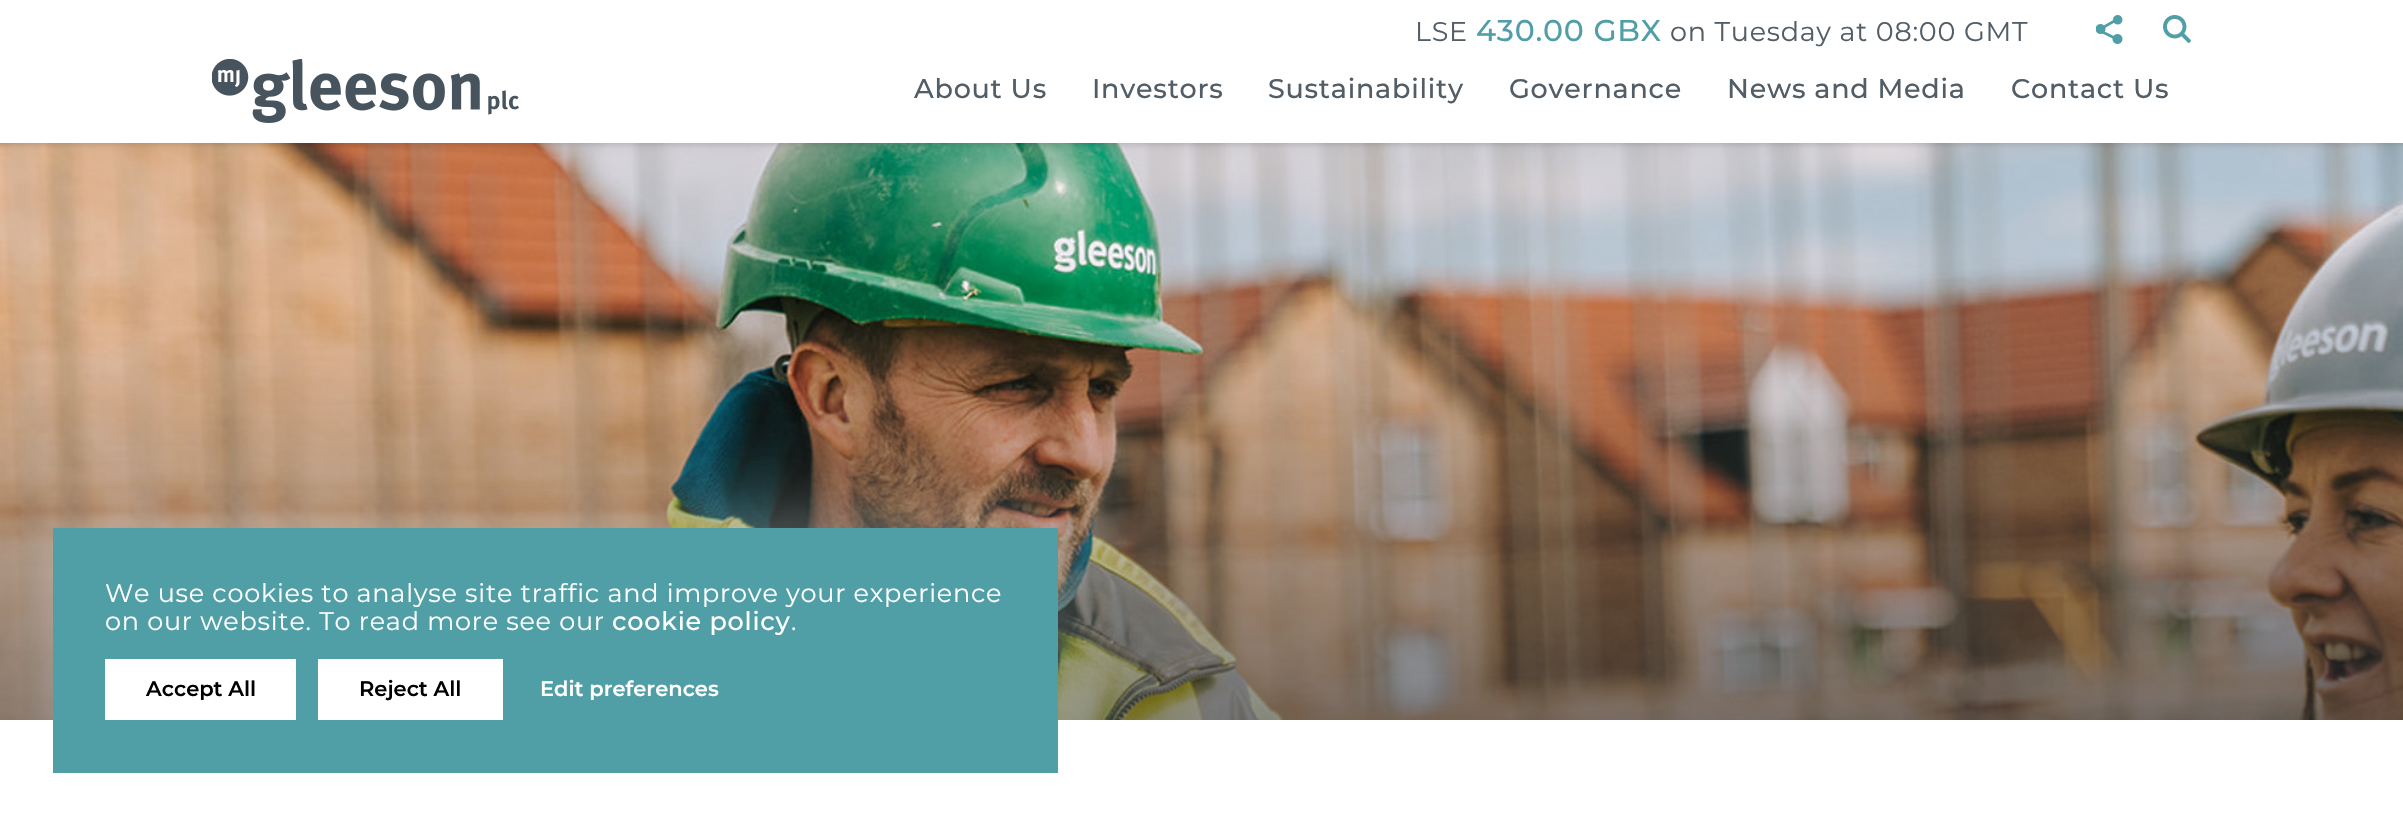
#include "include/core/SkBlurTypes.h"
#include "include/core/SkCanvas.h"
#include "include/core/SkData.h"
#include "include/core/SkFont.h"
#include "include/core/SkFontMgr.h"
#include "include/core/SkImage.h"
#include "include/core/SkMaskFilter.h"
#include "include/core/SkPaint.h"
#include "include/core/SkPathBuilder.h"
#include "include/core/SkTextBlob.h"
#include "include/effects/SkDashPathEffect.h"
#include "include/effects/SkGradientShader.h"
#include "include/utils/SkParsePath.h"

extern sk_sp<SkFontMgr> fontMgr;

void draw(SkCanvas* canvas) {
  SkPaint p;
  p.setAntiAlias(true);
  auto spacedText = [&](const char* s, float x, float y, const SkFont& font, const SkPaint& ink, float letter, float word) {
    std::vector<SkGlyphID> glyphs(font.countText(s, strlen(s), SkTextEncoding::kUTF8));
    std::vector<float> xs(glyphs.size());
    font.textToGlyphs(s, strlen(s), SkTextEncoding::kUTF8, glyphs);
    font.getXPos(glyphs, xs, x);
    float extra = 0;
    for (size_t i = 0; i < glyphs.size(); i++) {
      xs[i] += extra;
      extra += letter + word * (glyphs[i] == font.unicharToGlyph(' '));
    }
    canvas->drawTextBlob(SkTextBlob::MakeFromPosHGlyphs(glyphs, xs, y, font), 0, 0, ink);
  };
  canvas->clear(SK_ColorWHITE);
  canvas->drawImageRect(SkImages::DeferredFromEncodedData(SkData::MakeFromFileName("images/4.png")), SkRect::MakeLTRB(0, 143, 2403, 720), SkSamplingOptions());
  p.setColor(SkColorSetARGB(84, 0, 0, 0));
  p.setMaskFilter(SkMaskFilter::MakeBlur(kNormal_SkBlurStyle, 5));
  canvas->drawRect(SkRect::MakeLTRB(-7, -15, 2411, 141), p);
  p.setMaskFilter(nullptr);
  p.setColor(SK_ColorWHITE);
  canvas->drawRect(SkRect::MakeLTRB(0, 0, 2403, 143), p);
  canvas->drawImageRect(SkImages::DeferredFromEncodedData(SkData::MakeFromFileName("images/1.png")), SkRect::MakeLTRB(212, 59, 519, 123), SkSamplingOptions());
  canvas->drawImageRect(SkImages::DeferredFromEncodedData(SkData::MakeFromFileName("images/2.png")), SkRect::MakeLTRB(2096, 15, 2123, 44), SkSamplingOptions());
  canvas->drawImageRect(SkImages::DeferredFromEncodedData(SkData::MakeFromFileName("images/3.png")), SkRect::MakeLTRB(2163, 15, 2191, 43), SkSamplingOptions());
  p.setColor(SkColorSetARGB(84, 255, 255, 255));
  p.setMaskFilter(SkMaskFilter::MakeBlur(kNormal_SkBlurStyle, 41));
  canvas->drawRect(SkRect::MakeLTRB(53, 521, 1058, 765), p);
  p.setMaskFilter(nullptr);
  p.setColor(SkColorSetRGB(80, 158, 166));
  canvas->drawRect(SkRect::MakeLTRB(53, 528, 1058, 773), p);
  p.setColor(SK_ColorWHITE);
  canvas->drawRect(SkRect::MakeLTRB(105, 659, 296, 720), p);
  canvas->drawRect(SkRect::MakeLTRB(318, 659, 503, 720), p);
  SkFont font1(fontMgr->matchFamilyStyle("Montserrat", SkFontStyle::Normal()), 27);
  font1.setSubpixel(true);
  p.setColor(SkColorSetRGB(82, 93, 102));
  spacedText("LSE", 1415, 41, font1, p, 0.75f, 0);
  SkFont font2(fontMgr->matchFamilyStyle("Montserrat", SkFontStyle(500, SkFontStyle::kNormal_Width, SkFontStyle::kUpright_Slant)), 30);
  font2.setSubpixel(true);
  p.setColor(SkColorSetRGB(80, 158, 166));
  spacedText("430.00 GBX", 1476, 41, font2, p, 0.75f, 0);
  p.setColor(SkColorSetRGB(82, 93, 102));
  spacedText("on Tuesday at 08:00 GMT", 1670, 41, font1, p, 0.75f, 0);
  SkFont font3(fontMgr->matchFamilyStyle("Montserrat", SkFontStyle(500, SkFontStyle::kNormal_Width, SkFontStyle::kUpright_Slant)), 27);
  font3.setSubpixel(true);
  spacedText("About Us", 914, 98, font3, p, 0.75f, 0);
  spacedText("Investors", 1092, 98, font3, p, 0.75f, 0);
  spacedText("Sustainability", 1268, 98, font3, p, 0.75f, 0);
  spacedText("Governance", 1509, 98, font3, p, 0.75f, 0);
  spacedText("News and Media", 1727, 98, font3, p, 0.75f, 0);
  spacedText("Contact Us", 2011, 98, font3, p, 0.75f, 0);
  SkFont font4(fontMgr->matchFamilyStyle("Montserrat", SkFontStyle::Normal()), 25.5f);
  font4.setSubpixel(true);
  p.setColor(SK_ColorWHITE);
  spacedText("We use cookies to analyse site traffic and improve your experience", 105, 602, font4, p, 0.75f, 0);
  spacedText("on our website. To read more see our", 105, 630, font4, p, 0.75f, 0);
  SkFont font5(fontMgr->matchFamilyStyle("Montserrat", SkFontStyle(500, SkFontStyle::kNormal_Width, SkFontStyle::kUpright_Slant)), 25.5f);
  font5.setSubpixel(true);
  spacedText("cookie policy", 612, 630, font5, p, 0.75f, 0);
  spacedText(".", 791, 630, font4, p, 0.75f, 0);
  SkFont font6(fontMgr->matchFamilyStyle("Montserrat", SkFontStyle(600, SkFontStyle::kNormal_Width, SkFontStyle::kUpright_Slant)), 21);
  font6.setSubpixel(true);
  p.setColor(SK_ColorBLACK);
  canvas->drawString("Accept All", 146, 696, font6, p);
  canvas->drawString("Reject All", 359, 696, font6, p);
  p.setColor(SK_ColorWHITE);
  canvas->drawString("Edit preferences", 540, 696, font6, p);
}
